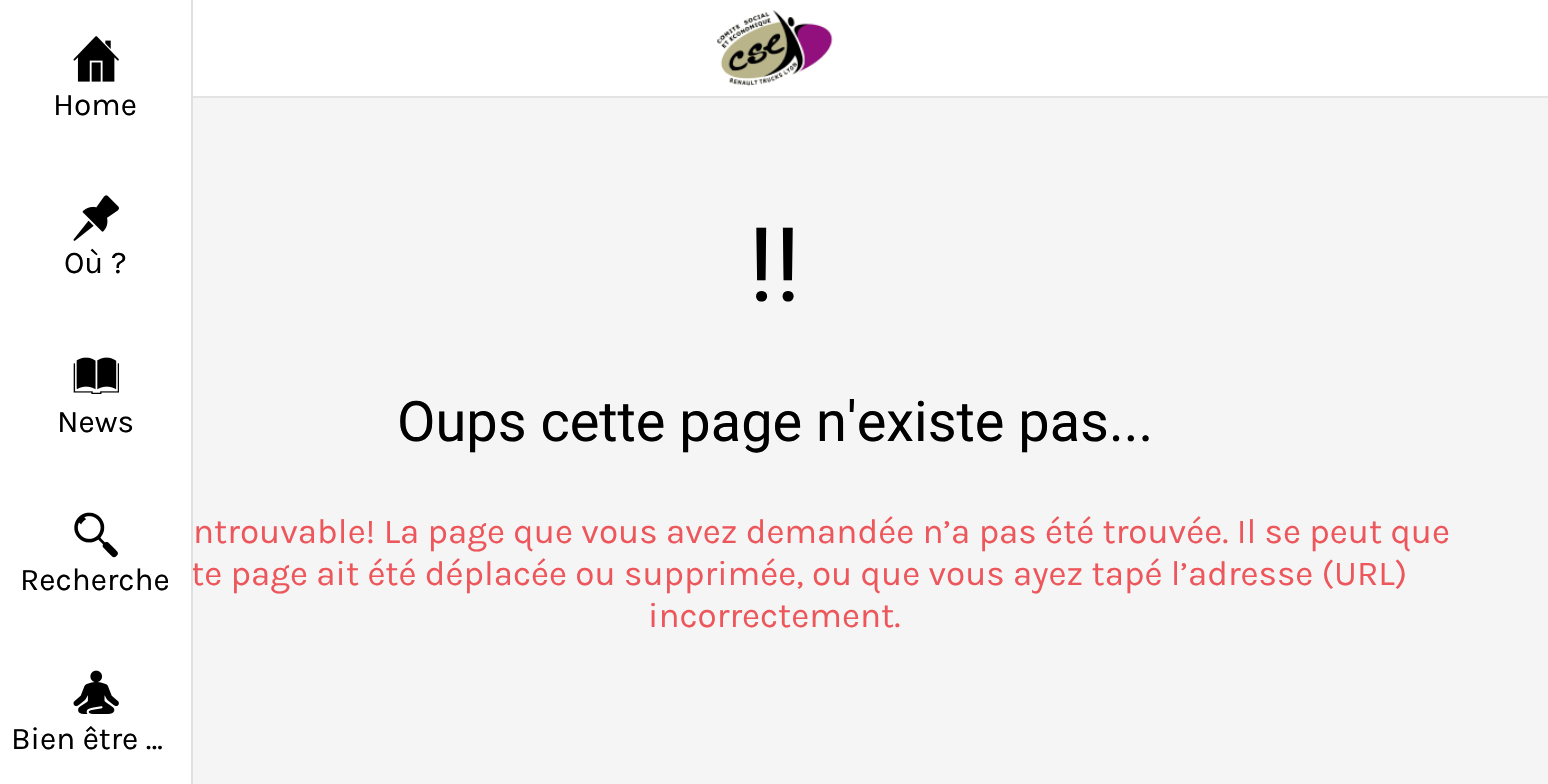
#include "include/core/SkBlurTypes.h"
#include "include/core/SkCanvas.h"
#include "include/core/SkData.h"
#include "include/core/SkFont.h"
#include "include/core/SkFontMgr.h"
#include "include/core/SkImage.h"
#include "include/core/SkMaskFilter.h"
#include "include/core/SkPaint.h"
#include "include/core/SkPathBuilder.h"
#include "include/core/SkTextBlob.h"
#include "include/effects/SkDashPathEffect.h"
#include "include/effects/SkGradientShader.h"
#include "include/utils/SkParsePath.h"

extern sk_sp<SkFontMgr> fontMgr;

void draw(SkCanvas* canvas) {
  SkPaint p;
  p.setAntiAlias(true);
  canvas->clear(SkColorSetRGB(245, 245, 245));
  p.setColor(SK_ColorWHITE);
  canvas->drawRect(SkRect::MakeLTRB(0, 0, 191, 784), p);
  canvas->drawImageRect(SkImages::DeferredFromEncodedData(SkData::MakeFromFileName("images/1.png")), SkRect::MakeLTRB(73, 36, 119, 82), SkSamplingOptions());
  canvas->drawImageRect(SkImages::DeferredFromEncodedData(SkData::MakeFromFileName("images/2.png")), SkRect::MakeLTRB(73, 195, 119, 241), SkSamplingOptions());
  canvas->drawImageRect(SkImages::DeferredFromEncodedData(SkData::MakeFromFileName("images/3.png")), SkRect::MakeLTRB(73, 357, 119, 394), SkSamplingOptions());
  canvas->drawImageRect(SkImages::DeferredFromEncodedData(SkData::MakeFromFileName("images/4.png")), SkRect::MakeLTRB(74, 512, 118, 558), SkSamplingOptions());
  canvas->drawImageRect(SkImages::DeferredFromEncodedData(SkData::MakeFromFileName("images/5.png")), SkRect::MakeLTRB(73, 670, 119, 714), SkSamplingOptions());
  canvas->drawRect(SkRect::MakeLTRB(193, 0, 1548, 96), p);
  p.setColor(SkColorSetRGB(228, 228, 228));
  canvas->drawRect(SkRect::MakeLTRB(193, 96, 1548, 98), p);
  canvas->drawImageRect(SkImages::DeferredFromEncodedData(SkData::MakeFromFileName("images/6.png")), SkRect::MakeLTRB(717, 10, 833, 86), SkSamplingOptions());
  SkFont font1(fontMgr->matchFamilyStyle("Karla", SkFontStyle::Normal()), 31.5f);
  font1.setSubpixel(true);
  p.setColor(SK_ColorBLACK);
  canvas->drawString("Home", 53, 115, font1, p);
  canvas->drawString("Où ?", 64, 273, font1, p);
  canvas->drawString("News", 57, 432, font1, p);
  canvas->drawString("Recherche", 20, 590, font1, p);
  canvas->drawString("Bien être …", 11, 749, font1, p);
  SkFont font2(fontMgr->matchFamilyStyle("Roboto", SkFontStyle::Normal()), 103);
  font2.setSubpixel(true);
  canvas->drawString("!!", 748, 301, font2, p);
  SkFont font3(fontMgr->matchFamilyStyle("Roboto", SkFontStyle::Normal()), 55.9f);
  font3.setSubpixel(true);
  canvas->drawString("Oups cette page n'existe pas...", 397, 441, font3, p);
  SkFont font4(fontMgr->matchFamilyStyle("Karla", SkFontStyle::Normal()), 35);
  font4.setSubpixel(true);
  p.setColor(SkColorSetRGB(237, 87, 92));
  canvas->drawString("ntrouvable! La page que vous avez demandée n’a pas été trouvée. Il se peut que", 193, 543, font4, p);
  canvas->drawString("te page ait été déplacée ou supprimée, ou que vous ayez tapé l’adresse (URL)", 191, 585, font4, p);
  p.setColor(SkColorSetRGB(224, 224, 224));
  canvas->drawRect(SkRect::MakeLTRB(191, 0, 193, 784), p);
  p.setColor(SkColorSetRGB(237, 87, 92));
  canvas->drawString("incorrectement.", 648, 627, font4, p);
}
